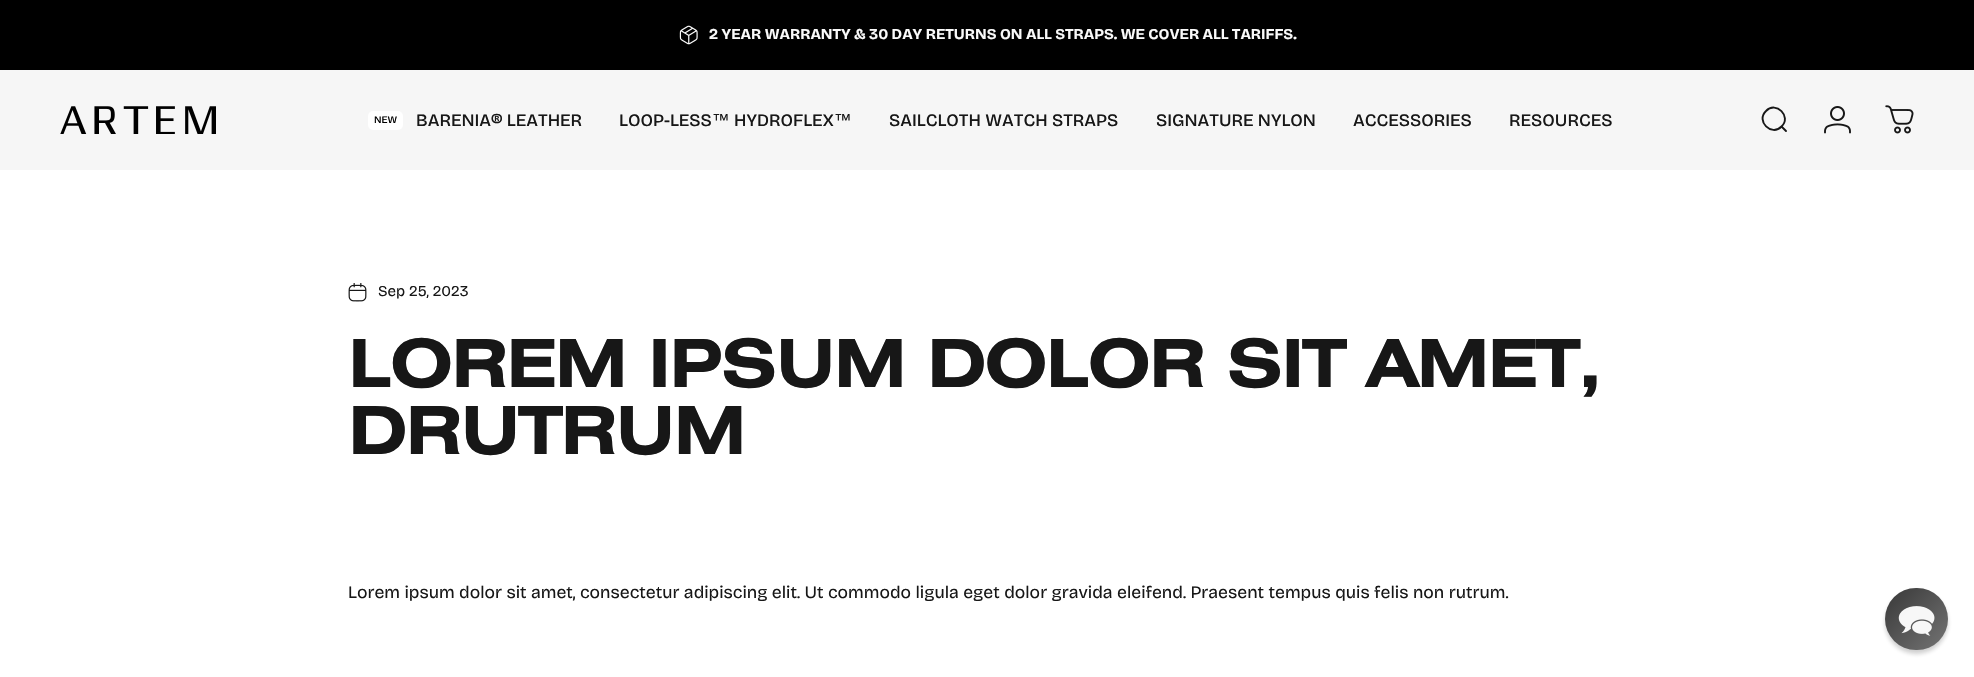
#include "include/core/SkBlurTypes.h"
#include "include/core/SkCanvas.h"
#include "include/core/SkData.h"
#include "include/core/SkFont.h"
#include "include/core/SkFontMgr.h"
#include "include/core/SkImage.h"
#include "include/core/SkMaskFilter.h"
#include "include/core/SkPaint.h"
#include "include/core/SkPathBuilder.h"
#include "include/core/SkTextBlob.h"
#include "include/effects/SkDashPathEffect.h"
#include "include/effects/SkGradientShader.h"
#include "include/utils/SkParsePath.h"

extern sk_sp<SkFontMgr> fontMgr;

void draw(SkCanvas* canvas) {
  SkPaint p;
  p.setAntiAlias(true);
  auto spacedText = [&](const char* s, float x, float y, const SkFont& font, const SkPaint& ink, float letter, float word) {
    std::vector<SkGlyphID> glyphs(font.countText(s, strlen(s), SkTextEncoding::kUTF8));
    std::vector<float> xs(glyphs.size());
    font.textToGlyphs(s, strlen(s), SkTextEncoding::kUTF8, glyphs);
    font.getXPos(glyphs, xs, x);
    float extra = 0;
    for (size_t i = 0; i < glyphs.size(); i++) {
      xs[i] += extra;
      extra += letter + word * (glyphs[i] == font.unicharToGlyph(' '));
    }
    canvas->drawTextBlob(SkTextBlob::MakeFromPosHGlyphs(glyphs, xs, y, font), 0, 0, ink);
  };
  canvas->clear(SK_ColorWHITE);
  p.setColor(SK_ColorBLACK);
  canvas->drawRect(SkRect::MakeLTRB(0, 0, 1974, 70), p);
  canvas->drawImageRect(SkImages::DeferredFromEncodedData(SkData::MakeFromFileName("images/1.png")), SkRect::MakeLTRB(679, 25, 698, 45), SkSamplingOptions());
  p.setColor(SkColorSetRGB(246, 246, 246));
  canvas->drawRect(SkRect::MakeLTRB(0, 70, 1974, 170), p);
  canvas->drawImageRect(SkImages::DeferredFromEncodedData(SkData::MakeFromFileName("images/2.png")), SkRect::MakeLTRB(60, 106, 216, 134), SkSamplingOptions());
  p.setColor(SK_ColorWHITE);
  canvas->drawRoundRect(SkRect::MakeLTRB(368, 111, 403, 130), 5, 5, p);
  p.setStyle(SkPaint::kStroke_Style);
  p.setStrokeWidth(1.9f);
  p.setStrokeCap(SkPaint::kRound_Cap);
  p.setColor(SkColorSetRGB(23, 23, 23));
  canvas->drawPath(SkPathBuilder().moveTo(1786, 131).lineTo(1781.5f, 126.5f).moveTo(1781.5f, 126.5f).cubicTo(1792, 116.5f, 1776, 100.5f, 1766, 111).cubicTo(1755.5f, 121, 1771.5f, 137, 1781.5f, 126.5f).close().detach(), p);
  canvas->drawImageRect(SkImages::DeferredFromEncodedData(SkData::MakeFromFileName("images/3.png")), SkRect::MakeLTRB(1824, 106, 1851, 134), SkSamplingOptions());
  canvas->drawImageRect(SkImages::DeferredFromEncodedData(SkData::MakeFromFileName("images/4.png")), SkRect::MakeLTRB(1885, 105, 1914, 134), SkSamplingOptions());
  canvas->drawImageRect(SkImages::DeferredFromEncodedData(SkData::MakeFromFileName("images/5.png")), SkRect::MakeLTRB(348, 283, 367, 302), SkSamplingOptions());
  p.setStyle(SkPaint::kFill_Style);
  p.setColor(SkColorSetARGB(51, 13, 13, 13));
  p.setMaskFilter(SkMaskFilter::MakeBlur(kNormal_SkBlurStyle, 2));
  canvas->drawRoundRect(SkRect::MakeLTRB(1885, 591, 1948, 654), 31.5f, 31.5f, p);
  p.setMaskFilter(nullptr);
  {
    const SkColor colors[] = {SkColorSetRGB(56, 56, 56), SkColorSetRGB(116, 116, 116)};
    const float stops[] = {0, 1};
    const SkPoint ends[] = {{1885, 588}, {1948, 650}};
    p.setShader(SkGradientShader::MakeLinear(ends, colors, stops, 2, SkTileMode::kClamp));
    p.setAlpha(255);
  }
  canvas->drawRoundRect(SkRect::MakeLTRB(1885, 588, 1948, 650), 31, 31, p);
  canvas->drawImageRect(SkImages::DeferredFromEncodedData(SkData::MakeFromFileName("images/6.png")), SkRect::MakeLTRB(1898, 606, 1935, 636), SkSamplingOptions());
  SkFont font1(fontMgr->matchFamilyStyle("Bricolage Grotesque", SkFontStyle::Bold()), 15);
  font1.setSubpixel(true);
  p.setShader(nullptr);
  p.setColor(SkColorSetRGB(250, 250, 250));
  canvas->drawString("2 YEAR WARRANTY & 30 DAY RETURNS ON ALL STRAPS. WE COVER ALL TARIFFS.", 709, 39, font1, p);
  SkFont font2(fontMgr->matchFamilyStyle("Bricolage Grotesque", SkFontStyle(500, SkFontStyle::kNormal_Width, SkFontStyle::kUpright_Slant)), 10);
  font2.setSubpixel(true);
  p.setColor(SK_ColorBLACK);
  canvas->drawString("NEW", 374, 123, font2, p);
  SkFont font3(fontMgr->matchFamilyStyle("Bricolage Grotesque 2", SkFontStyle(500, SkFontStyle::kNormal_Width, SkFontStyle::kUpright_Slant)), 17.5f);
  font3.setSubpixel(true);
  p.setColor(SkColorSetRGB(23, 23, 23));
  canvas->drawString("BARENIA® LEATHER", 416, 126, font3, p);
  canvas->drawString("LOOP-LESS", 619, 126, font3, p);
  SkFont font4(fontMgr->matchFamilyStyle("Liberation Sans", SkFontStyle::Normal()), 17.5f);
  font4.setSubpixel(true);
  canvas->drawString("™", 712, 126, font4, p);
  canvas->drawString("HYDROFLEX", 734, 126, font3, p);
  canvas->drawString("™", 834, 126, font4, p);
  canvas->drawString("SAILCLOTH WATCH STRAPS", 889, 126, font3, p);
  canvas->drawString("SIGNATURE NYLON", 1156, 126, font3, p);
  canvas->drawString("ACCESSORIES", 1353, 126, font3, p);
  canvas->drawString("RESOURCES", 1509, 126, font3, p);
  SkFont font5(fontMgr->matchFamilyStyle("Bricolage Grotesque", SkFontStyle::Normal()), 15);
  font5.setSubpixel(true);
  canvas->drawString("Sep 25, 2023", 378, 296, font5, p);
  SkFont font6(fontMgr->matchFamilyStyle("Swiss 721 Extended", SkFontStyle::Bold()), 66.5f);
  font6.setSubpixel(true);
  spacedText("LOREM IPSUM DOLOR SIT AMET,", 348, 387, font6, p, -2, 0);
  spacedText("DRUTRUM", 348, 454, font6, p, -2, 0);
  SkFont font7(fontMgr->matchFamilyStyle("Bricolage Grotesque 2", SkFontStyle::Normal()), 17.5f);
  font7.setSubpixel(true);
  canvas->drawString("Lorem ipsum dolor sit amet, consectetur adipiscing elit. Ut commodo ligula eget dolor gravida eleifend. Praesent tempus quis felis non rutrum.", 348, 598, font7, p);
}
